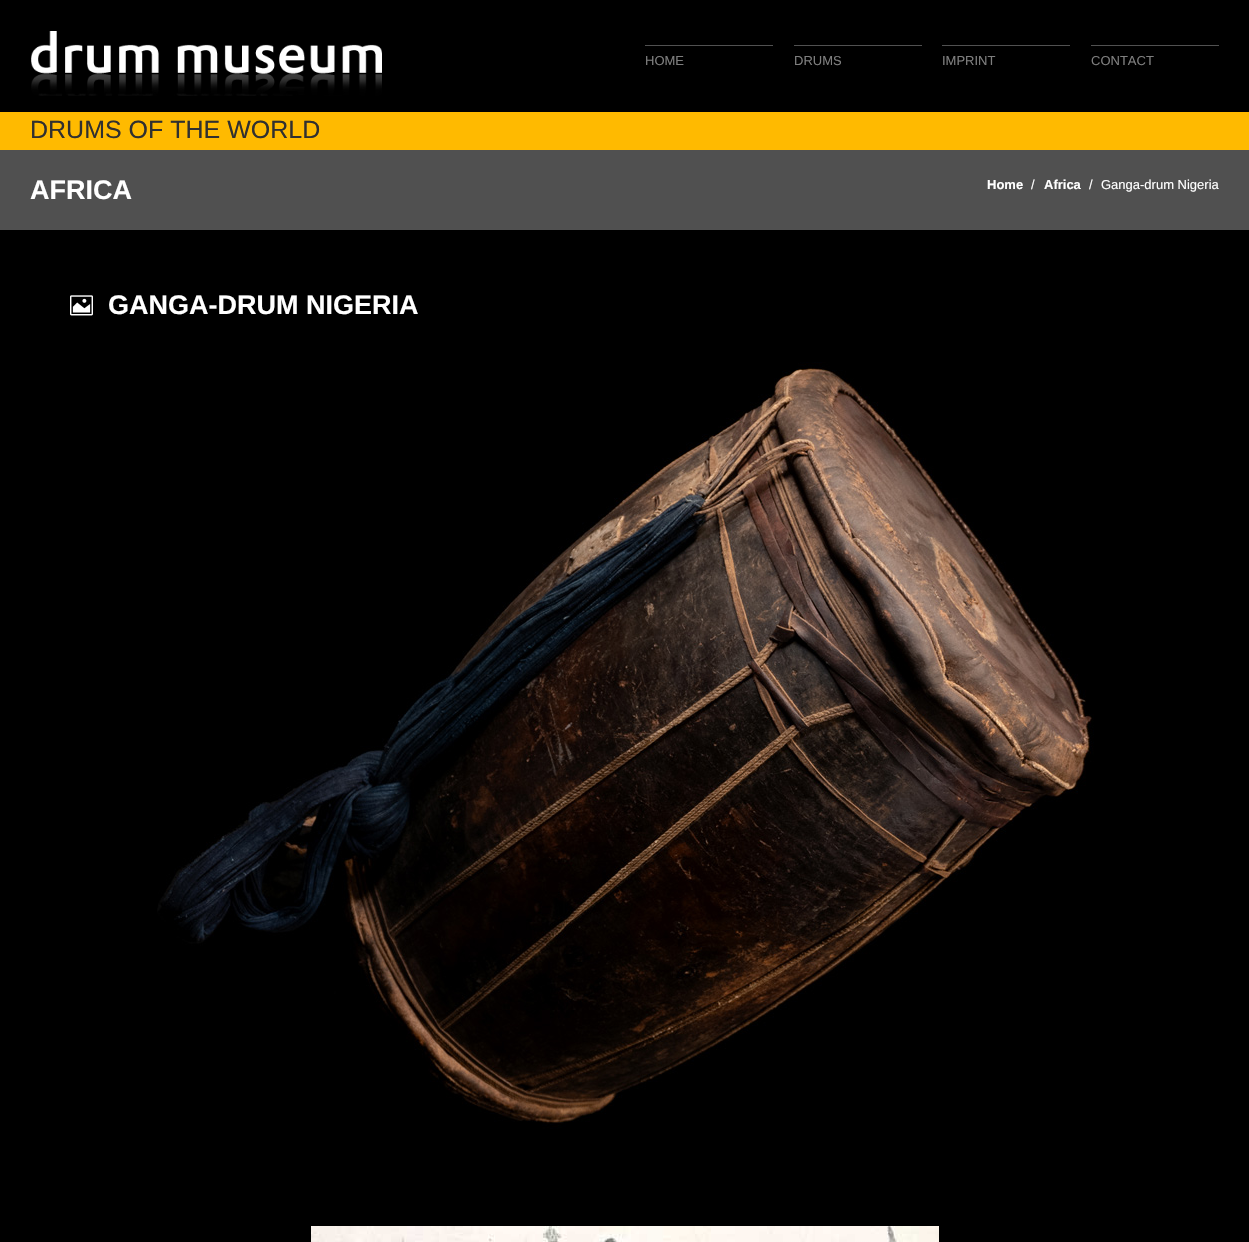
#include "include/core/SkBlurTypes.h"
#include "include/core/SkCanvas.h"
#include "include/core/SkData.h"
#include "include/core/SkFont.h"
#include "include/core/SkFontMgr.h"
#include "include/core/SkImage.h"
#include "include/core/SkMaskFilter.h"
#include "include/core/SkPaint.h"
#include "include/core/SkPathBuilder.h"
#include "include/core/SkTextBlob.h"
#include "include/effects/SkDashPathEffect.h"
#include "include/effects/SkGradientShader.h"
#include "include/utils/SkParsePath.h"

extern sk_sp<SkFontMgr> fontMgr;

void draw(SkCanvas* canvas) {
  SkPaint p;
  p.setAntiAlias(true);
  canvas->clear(SK_ColorBLACK);
  canvas->drawImageRect(SkImages::DeferredFromEncodedData(SkData::MakeFromFileName("images/1.png")), SkRect::MakeLTRB(31, 31, 382, 96), SkSamplingOptions());
  p.setColor(SkColorSetRGB(81, 81, 81));
  canvas->drawRect(SkRect::MakeLTRB(645, 45, 773, 46), p);
  canvas->drawRect(SkRect::MakeLTRB(794, 45, 922, 46), p);
  canvas->drawRect(SkRect::MakeLTRB(942, 45, 1070, 46), p);
  canvas->drawRect(SkRect::MakeLTRB(1091, 45, 1219, 46), p);
  p.setColor(SkColorSetRGB(255, 186, 0));
  canvas->drawRect(SkRect::MakeLTRB(0, 112, 1249, 150), p);
  p.setColor(SkColorSetRGB(80, 80, 80));
  canvas->drawRect(SkRect::MakeLTRB(0, 150, 1249, 230), p);
  canvas->drawImageRect(SkImages::DeferredFromEncodedData(SkData::MakeFromFileName("images/2.png")), SkRect::MakeLTRB(70, 295, 93, 316), SkSamplingOptions());
  canvas->drawImageRect(SkImages::DeferredFromEncodedData(SkData::MakeFromFileName("images/3.png")), SkRect::MakeLTRB(157, 362, 1094, 1129), SkSamplingOptions());
  canvas->drawImageRect(SkImages::DeferredFromEncodedData(SkData::MakeFromFileName("images/4.png")), SkRect::MakeLTRB(311, 1226, 939, 1242), SkSamplingOptions());
  SkFont font1(fontMgr->matchFamilyStyle("Liberation Sans", SkFontStyle::Normal()), 13);
  font1.setSubpixel(true);
  p.setColor(SkColorSetRGB(126, 126, 126));
  canvas->drawString("HOME", 645, 65, font1, p);
  canvas->drawString("DRUMS", 794, 65, font1, p);
  canvas->drawString("IMPRINT", 942, 65, font1, p);
  canvas->drawString("CONTACT", 1091, 65, font1, p);
  SkFont font2(fontMgr->matchFamilyStyle("Liberation Sans", SkFontStyle::Normal()), 25);
  font2.setSubpixel(true);
  p.setColor(SkColorSetRGB(48, 48, 48));
  canvas->drawString("DRUMS OF THE WORLD", 30, 138, font2, p);
  SkFont font3(fontMgr->matchFamilyStyle("Liberation Sans", SkFontStyle::Bold()), 27);
  font3.setSubpixel(true);
  p.setColor(SK_ColorWHITE);
  canvas->drawString("AFRICA", 30, 199, font3, p);
  SkFont font4(fontMgr->matchFamilyStyle("Liberation Sans", SkFontStyle::Bold()), 13);
  font4.setSubpixel(true);
  canvas->drawString("Home", 987, 189, font4, p);
  canvas->drawString("/", 1031, 189, font1, p);
  canvas->drawString("Africa", 1044, 189, font4, p);
  canvas->drawString("/", 1089, 189, font1, p);
  canvas->drawString("Ganga-drum Nigeria", 1101, 189, font1, p);
  canvas->drawString("GANGA-DRUM NIGERIA", 108, 314, font3, p);
}
